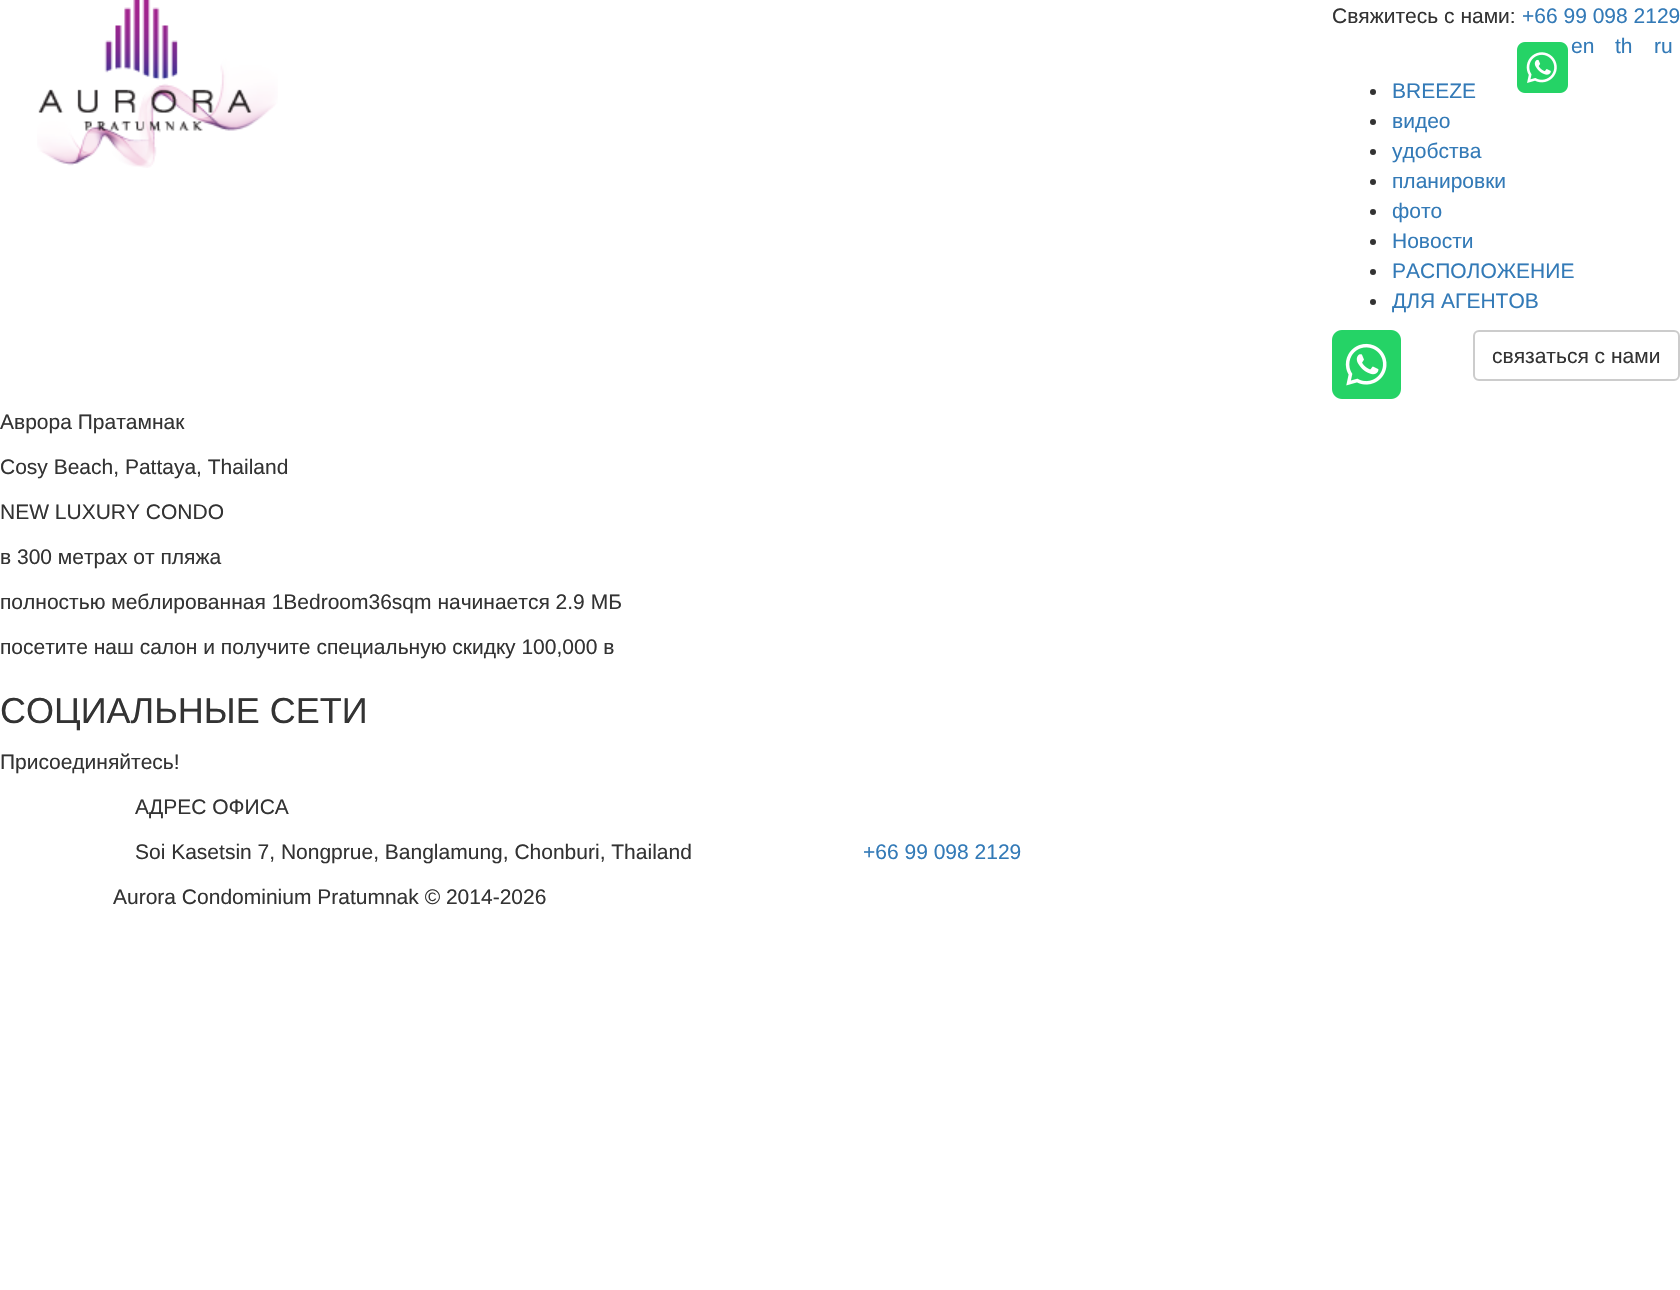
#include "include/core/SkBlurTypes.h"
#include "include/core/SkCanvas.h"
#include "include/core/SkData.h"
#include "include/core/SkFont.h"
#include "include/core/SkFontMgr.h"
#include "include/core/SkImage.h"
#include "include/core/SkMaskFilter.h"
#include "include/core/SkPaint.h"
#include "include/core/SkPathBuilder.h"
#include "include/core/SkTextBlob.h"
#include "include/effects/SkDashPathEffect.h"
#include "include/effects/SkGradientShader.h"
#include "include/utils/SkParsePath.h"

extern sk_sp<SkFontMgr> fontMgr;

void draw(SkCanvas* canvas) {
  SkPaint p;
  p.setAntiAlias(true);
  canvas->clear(SK_ColorWHITE);
  canvas->drawImageRect(SkImages::DeferredFromEncodedData(SkData::MakeFromFileName("images/1.png")), SkRect::MakeLTRB(37, 0, 278, 168), SkSamplingOptions());
  canvas->drawImageRect(SkImages::DeferredFromEncodedData(SkData::MakeFromFileName("images/2.png")), SkRect::MakeLTRB(1517, 42, 1568, 93), SkSamplingOptions());
  p.setColor(SkColorSetRGB(51, 51, 51));
  canvas->drawCircle(1373, 92, 3, p);
  canvas->drawCircle(1373, 122, 3, p);
  canvas->drawCircle(1373, 152, 3, p);
  canvas->drawCircle(1373, 182, 3, p);
  canvas->drawCircle(1373, 212, 3, p);
  canvas->drawCircle(1373, 242, 3, p);
  canvas->drawCircle(1373, 272, 3, p);
  canvas->drawCircle(1373, 302, 3, p);
  canvas->drawImageRect(SkImages::DeferredFromEncodedData(SkData::MakeFromFileName("images/3.png")), SkRect::MakeLTRB(1332, 330, 1401, 399), SkSamplingOptions());
  p.setStyle(SkPaint::kStroke_Style);
  p.setStrokeWidth(2);
  p.setColor(SkColorSetRGB(204, 204, 204));
  canvas->drawRoundRect(SkRect::MakeLTRB(1474, 331, 1679, 380), 5, 5, p);
  SkFont font1(fontMgr->matchFamilyStyle("Liberation Sans", SkFontStyle::Normal()), 21);
  font1.setSubpixel(true);
  p.setStyle(SkPaint::kFill_Style);
  p.setColor(SkColorSetRGB(51, 51, 51));
  canvas->drawString("Свяжитесь с нами:", 1332, 23, font1, p);
  p.setColor(SkColorSetRGB(51, 122, 183));
  canvas->drawString("+66 99 098 2129", 1522, 23, font1, p);
  canvas->drawString("en", 1571, 53, font1, p);
  canvas->drawString("th", 1615, 53, font1, p);
  canvas->drawString("ru", 1654, 53, font1, p);
  canvas->drawString("BREEZE", 1392, 98, font1, p);
  canvas->drawString("видео", 1392, 128, font1, p);
  canvas->drawString("удобства", 1392, 158, font1, p);
  canvas->drawString("планировки", 1392, 188, font1, p);
  canvas->drawString("фото", 1392, 218, font1, p);
  canvas->drawString("Новости", 1392, 248, font1, p);
  canvas->drawString("РАСПОЛОЖЕНИЕ", 1392, 278, font1, p);
  canvas->drawString("ДЛЯ АГЕНТОВ", 1392, 308, font1, p);
  p.setColor(SkColorSetRGB(51, 51, 51));
  canvas->drawString("связаться c нами", 1492, 363, font1, p);
  canvas->drawString("Аврора Пратамнак", 0, 429, font1, p);
  canvas->drawString("Cosy Beach, Pattaya, Thailand", 0, 474, font1, p);
  canvas->drawString("NEW LUXURY CONDO", 0, 519, font1, p);
  canvas->drawString("в 300 метрах от пляжа", 0, 564, font1, p);
  canvas->drawString("полностью меблированная 1Bedroom36sqm начинается 2.9 МБ", 0, 609, font1, p);
  canvas->drawString("посетите наш салон и получите специальную скидку 100,000 в", 0, 654, font1, p);
  SkFont font2(fontMgr->matchFamilyStyle("Liberation Sans", SkFontStyle::Normal()), 36);
  font2.setSubpixel(true);
  canvas->drawString("СОЦИАЛЬНЫЕ СЕТИ", 0, 723, font2, p);
  canvas->drawString("Присоединяйтесь!", 0, 769, font1, p);
  canvas->drawString("АДРЕС ОФИСА", 135, 814, font1, p);
  canvas->drawString("Soi Kasetsin 7, Nongprue, Banglamung, Chonburi, Thailand", 135, 859, font1, p);
  p.setColor(SkColorSetRGB(51, 122, 183));
  canvas->drawString("+66 99 098 2129", 863, 859, font1, p);
  p.setColor(SkColorSetRGB(51, 51, 51));
  canvas->drawString("Aurora Condominium Pratumnak © 2014-2026", 113, 904, font1, p);
}
